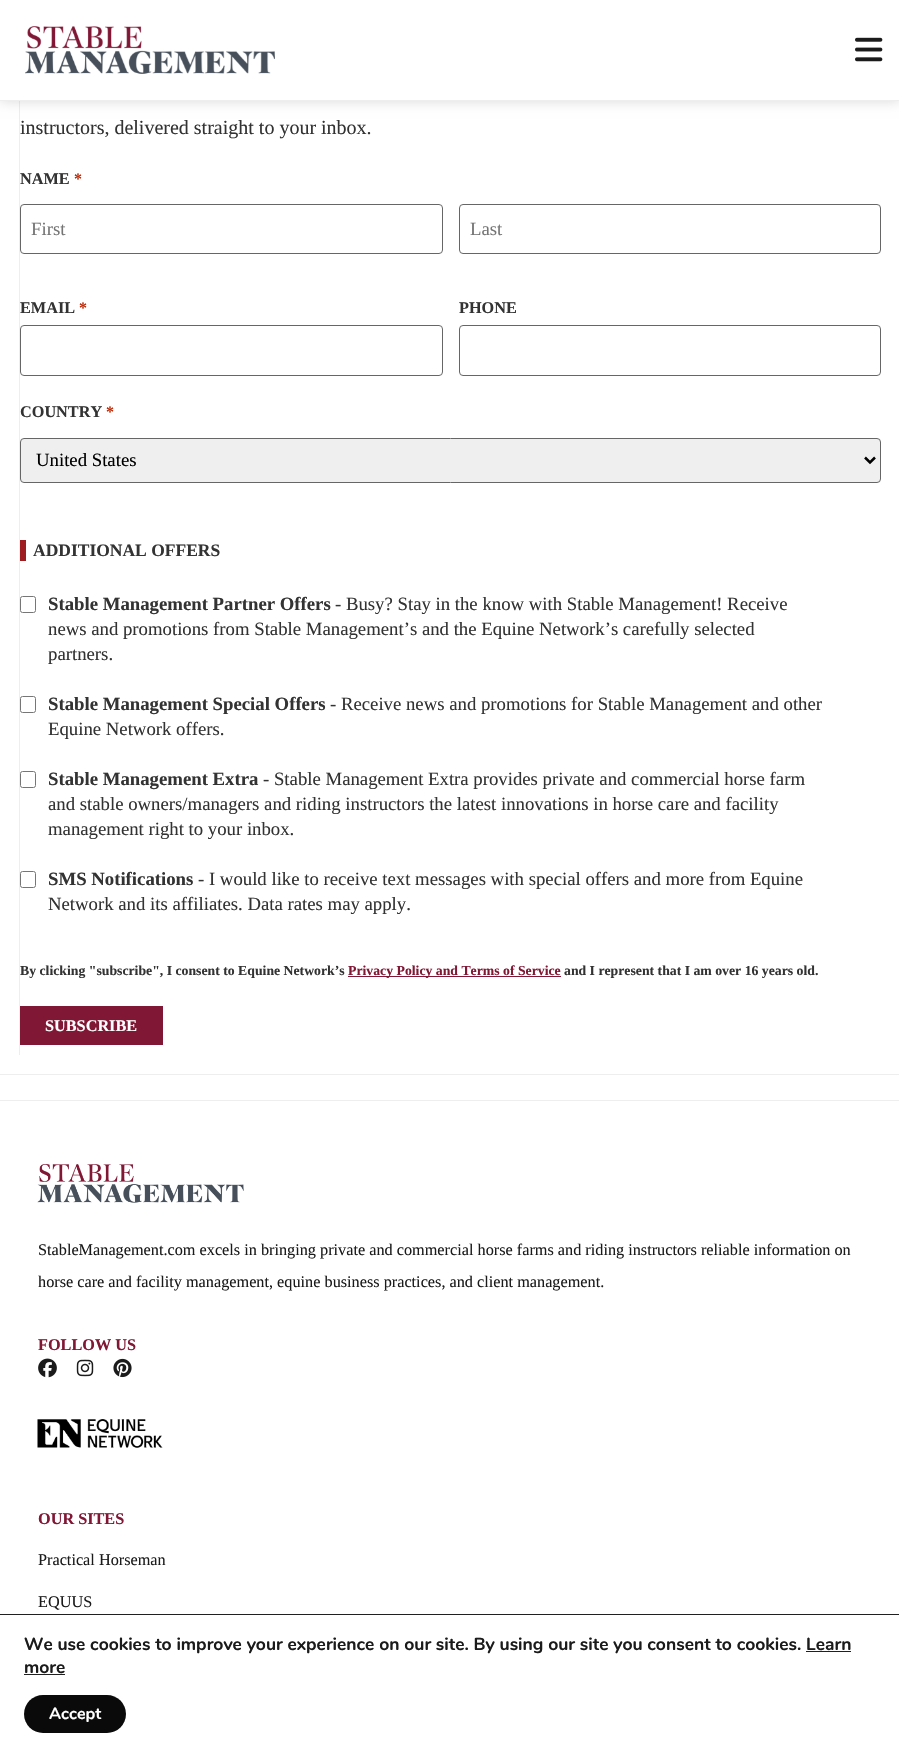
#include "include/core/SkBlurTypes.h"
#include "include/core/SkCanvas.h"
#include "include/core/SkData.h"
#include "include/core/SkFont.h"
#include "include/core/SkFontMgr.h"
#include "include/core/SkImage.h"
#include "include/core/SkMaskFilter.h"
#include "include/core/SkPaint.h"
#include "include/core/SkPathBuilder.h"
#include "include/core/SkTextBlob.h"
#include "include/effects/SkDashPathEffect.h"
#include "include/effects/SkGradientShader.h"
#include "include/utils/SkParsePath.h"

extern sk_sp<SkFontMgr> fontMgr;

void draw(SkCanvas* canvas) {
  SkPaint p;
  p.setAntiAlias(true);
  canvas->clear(SK_ColorWHITE);
  p.setColor(SkColorSetRGB(238, 238, 238));
  canvas->drawRect(SkRect::MakeLTRB(19, 101, 20, 1055), p);
  p.setColor(SkColorSetARGB(38, 0, 0, 0));
  p.setMaskFilter(SkMaskFilter::MakeBlur(kNormal_SkBlurStyle, 6));
  canvas->drawRect(SkRect::MakeLTRB(0, 0, 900, 101), p);
  p.setMaskFilter(nullptr);
  p.setColor(SK_ColorWHITE);
  canvas->drawRect(SkRect::MakeLTRB(0, 0, 899, 100), p);
  p.setColor(SkColorSetRGB(238, 238, 238));
  canvas->drawRect(SkRect::MakeLTRB(0, 100, 899, 101), p);
  canvas->drawImageRect(SkImages::DeferredFromEncodedData(SkData::MakeFromFileName("images/1.png")), SkRect::MakeLTRB(25, 26, 275, 74), SkSamplingOptions());
  canvas->drawImageRect(SkImages::DeferredFromEncodedData(SkData::MakeFromFileName("images/2.png")), SkRect::MakeLTRB(855, 37, 883, 62), SkSamplingOptions());
  p.setStyle(SkPaint::kStroke_Style);
  p.setStrokeWidth(1);
  p.setColor(SkColorSetRGB(102, 102, 102));
  canvas->drawRoundRect(SkRect::MakeLTRB(20.5f, 204.5f, 442.5f, 253.5f), 3.5f, 3.5f, p);
  canvas->drawRoundRect(SkRect::MakeLTRB(459.5f, 204.5f, 880.5f, 253.5f), 3.5f, 3.5f, p);
  canvas->drawRoundRect(SkRect::MakeLTRB(20.5f, 325.5f, 442.5f, 375.5f), 3.5f, 3.5f, p);
  canvas->drawRoundRect(SkRect::MakeLTRB(459.5f, 325.5f, 880.5f, 375.5f), 3.5f, 3.5f, p);
  p.setStyle(SkPaint::kFill_Style);
  p.setColor(SkColorSetRGB(239, 239, 239));
  canvas->drawRoundRect(SkRect::MakeLTRB(20.5f, 438.5f, 880.5f, 482.5f), 3.5f, 3.5f, p);
  p.setStyle(SkPaint::kStroke_Style);
  p.setColor(SkColorSetRGB(102, 102, 102));
  canvas->drawRoundRect(SkRect::MakeLTRB(20.5f, 438.5f, 880.5f, 482.5f), 3.5f, 3.5f, p);
  p.setStrokeWidth(2.5f);
  p.setColor(SK_ColorBLACK);
  canvas->drawPath(SkPathBuilder().moveTo(865, 457.5f).lineTo(870, 462.5f).lineTo(875, 457.5f).detach(), p);
  p.setStyle(SkPaint::kFill_Style);
  p.setColor(SkColorSetRGB(158, 29, 32));
  canvas->drawRect(SkRect::MakeLTRB(20, 540, 26, 561), p);
  p.setStyle(SkPaint::kStroke_Style);
  p.setStrokeWidth(1);
  p.setColor(SkColorSetRGB(118, 118, 118));
  canvas->drawRoundRect(SkRect::MakeLTRB(20.5f, 596.5f, 35.5f, 612.5f), 2, 2, p);
  canvas->drawRoundRect(SkRect::MakeLTRB(20.5f, 696.5f, 35.5f, 712.5f), 2, 2, p);
  canvas->drawRoundRect(SkRect::MakeLTRB(20.5f, 771.5f, 35.5f, 787.5f), 2, 2, p);
  canvas->drawRoundRect(SkRect::MakeLTRB(20.5f, 871.5f, 35.5f, 887.5f), 2, 2, p);
  p.setStyle(SkPaint::kFill_Style);
  p.setColor(SkColorSetRGB(128, 23, 53));
  canvas->drawRect(SkRect::MakeLTRB(348, 976, 561, 977), p);
  canvas->drawRect(SkRect::MakeLTRB(20, 1006, 163, 1045), p);
  p.setColor(SkColorSetRGB(238, 238, 238));
  canvas->drawRect(SkRect::MakeLTRB(0, 1074, 899, 1075), p);
  canvas->drawRect(SkRect::MakeLTRB(0, 1100, 899, 1101), p);
  canvas->drawImageRect(SkImages::DeferredFromEncodedData(SkData::MakeFromFileName("images/3.png")), SkRect::MakeLTRB(37, 1164, 244, 1203), SkSamplingOptions());
  canvas->drawImageRect(SkImages::DeferredFromEncodedData(SkData::MakeFromFileName("images/4.png")), SkRect::MakeLTRB(38, 1358, 57, 1378), SkSamplingOptions());
  canvas->drawImageRect(SkImages::DeferredFromEncodedData(SkData::MakeFromFileName("images/5.png")), SkRect::MakeLTRB(76, 1359, 94, 1377), SkSamplingOptions());
  canvas->drawImageRect(SkImages::DeferredFromEncodedData(SkData::MakeFromFileName("images/6.png")), SkRect::MakeLTRB(113, 1358, 132, 1378), SkSamplingOptions());
  canvas->drawImageRect(SkImages::DeferredFromEncodedData(SkData::MakeFromFileName("images/7.png")), SkRect::MakeLTRB(37, 1419, 163, 1448), SkSamplingOptions());
  p.setColor(SkColorSetRGB(32, 32, 32));
  canvas->drawRect(SkRect::MakeLTRB(0, 1614, 899, 1615), p);
  canvas->drawRect(SkRect::MakeLTRB(24, 1674, 65, 1675), p);
  p.setColor(SkColorSetRGB(10, 10, 10));
  canvas->drawRoundRect(SkRect::MakeLTRB(24, 1695, 126, 1733), 19, 19, p);
  SkFont font1(fontMgr->matchFamilyStyle("Liberation Serif", SkFontStyle::Normal()), 20);
  font1.setSubpixel(true);
  p.setColor(SkColorSetRGB(51, 51, 51));
  canvas->drawString("instructors, delivered straight to your inbox.", 20, 134, font1, p);
  SkFont font2(fontMgr->matchFamilyStyle("Liberation Serif", SkFontStyle::Bold()), 16.25f);
  font2.setSubpixel(true);
  canvas->drawString("NAME", 20, 184, font2, p);
  SkFont font3(fontMgr->matchFamilyStyle("Liberation Serif", SkFontStyle::Bold()), 16);
  font3.setSubpixel(true);
  p.setColor(SkColorSetRGB(192, 43, 10));
  canvas->drawString("*", 74, 184, font3, p);
  SkFont font4(fontMgr->matchFamilyStyle("Liberation Serif", SkFontStyle::Normal()), 18.75f);
  font4.setSubpixel(true);
  p.setColor(SkColorSetRGB(117, 117, 117));
  canvas->drawString("First", 31, 235, font4, p);
  canvas->drawString("Last", 470, 235, font4, p);
  p.setColor(SkColorSetRGB(51, 51, 51));
  canvas->drawString("EMAIL", 20, 313, font2, p);
  p.setColor(SkColorSetRGB(192, 43, 10));
  canvas->drawString("*", 79, 313, font3, p);
  p.setColor(SkColorSetRGB(51, 51, 51));
  canvas->drawString("PHONE", 459, 313, font2, p);
  canvas->drawString("COUNTRY", 20, 417, font2, p);
  p.setColor(SkColorSetRGB(192, 43, 10));
  canvas->drawString("*", 106, 417, font3, p);
  p.setColor(SK_ColorBLACK);
  canvas->drawString("United States", 36, 466, font4, p);
  SkFont font5(fontMgr->matchFamilyStyle("Liberation Serif", SkFontStyle::Bold()), 17.5f);
  font5.setSubpixel(true);
  p.setColor(SkColorSetRGB(51, 51, 51));
  canvas->drawString("ADDITIONAL OFFERS", 33, 556, font5, p);
  SkFont font6(fontMgr->matchFamilyStyle("Liberation Serif", SkFontStyle::Bold()), 18.75f);
  font6.setSubpixel(true);
  canvas->drawString("Stable Management Partner Offers", 48, 610, font6, p);
  canvas->drawString("- Busy? Stay in the know with Stable Management! Receive", 335, 610, font4, p);
  canvas->drawString("news and promotions from Stable Management’s and the Equine Network’s carefully selected", 48, 635, font4, p);
  canvas->drawString("partners.", 48, 660, font4, p);
  canvas->drawString("Stable Management Special Offers", 48, 710, font6, p);
  canvas->drawString("- Receive news and promotions for Stable Management and other", 330, 710, font4, p);
  canvas->drawString("Equine Network offers.", 48, 735, font4, p);
  canvas->drawString("Stable Management Extra", 48, 785, font6, p);
  canvas->drawString("- Stable Management Extra provides private and commercial horse farm", 263, 785, font4, p);
  canvas->drawString("and stable owners/managers and riding instructors the latest innovations in horse care and facility", 48, 810, font4, p);
  canvas->drawString("management right to your inbox.", 48, 835, font4, p);
  canvas->drawString("SMS Notifications", 48, 885, font6, p);
  canvas->drawString("- I would like to receive text messages with special offers and more from Equine", 198, 885, font4, p);
  canvas->drawString("Network and its affiliates. Data rates may apply.", 48, 910, font4, p);
  SkFont font7(fontMgr->matchFamilyStyle("Liberation Serif", SkFontStyle::Bold()), 13.75f);
  font7.setSubpixel(true);
  canvas->drawString("By clicking \"subscribe\", I consent to Equine Network’s", 20, 975, font7, p);
  p.setColor(SkColorSetRGB(128, 23, 53));
  canvas->drawString("Privacy Policy and Terms of Service", 348, 975, font7, p);
  p.setColor(SkColorSetRGB(51, 51, 51));
  canvas->drawString("and I represent that I am over 16 years old.", 564, 975, font7, p);
  p.setColor(SK_ColorWHITE);
  canvas->drawString("SUBSCRIBE", 45, 1031, font2, p);
  SkFont font8(fontMgr->matchFamilyStyle("Liberation Serif", SkFontStyle::Normal()), 16.25f);
  font8.setSubpixel(true);
  p.setColor(SkColorSetRGB(27, 27, 27));
  canvas->drawString("StableManagement.com excels in bringing private and commercial horse farms and riding instructors reliable information on", 38, 1255, font8, p);
  canvas->drawString("horse care and facility management, equine business practices, and client management.", 38, 1287, font8, p);
  p.setColor(SkColorSetRGB(128, 23, 53));
  canvas->drawString("FOLLOW US", 38, 1350, font2, p);
  canvas->drawString("OUR SITES", 38, 1524, font2, p);
  p.setColor(SkColorSetRGB(27, 27, 27));
  canvas->drawString("Practical Horseman", 38, 1565, font8, p);
  canvas->drawString("EQUUS", 38, 1607, font8, p);
  SkFont font9(fontMgr->matchFamilyStyle("Nunito", SkFontStyle::Bold()), 17.5f);
  font9.setSubpixel(true);
  canvas->drawString("We use cookies to improve your experience on our site. By using our site you consent to cookies. Learn", 24, 1650, font9, p);
  p.setColor(SkColorSetRGB(32, 32, 32));
  canvas->drawRect(SkRect::MakeLTRB(806, 1651, 851, 1652), p);
  p.setColor(SkColorSetRGB(27, 27, 27));
  canvas->drawString("more", 24, 1673, font9, p);
  SkFont font10(fontMgr->matchFamilyStyle("Nunito", SkFontStyle::Bold()), 16.25f);
  font10.setSubpixel(true);
  p.setColor(SK_ColorWHITE);
  canvas->drawString("Accept", 49, 1719, font10, p);
}
